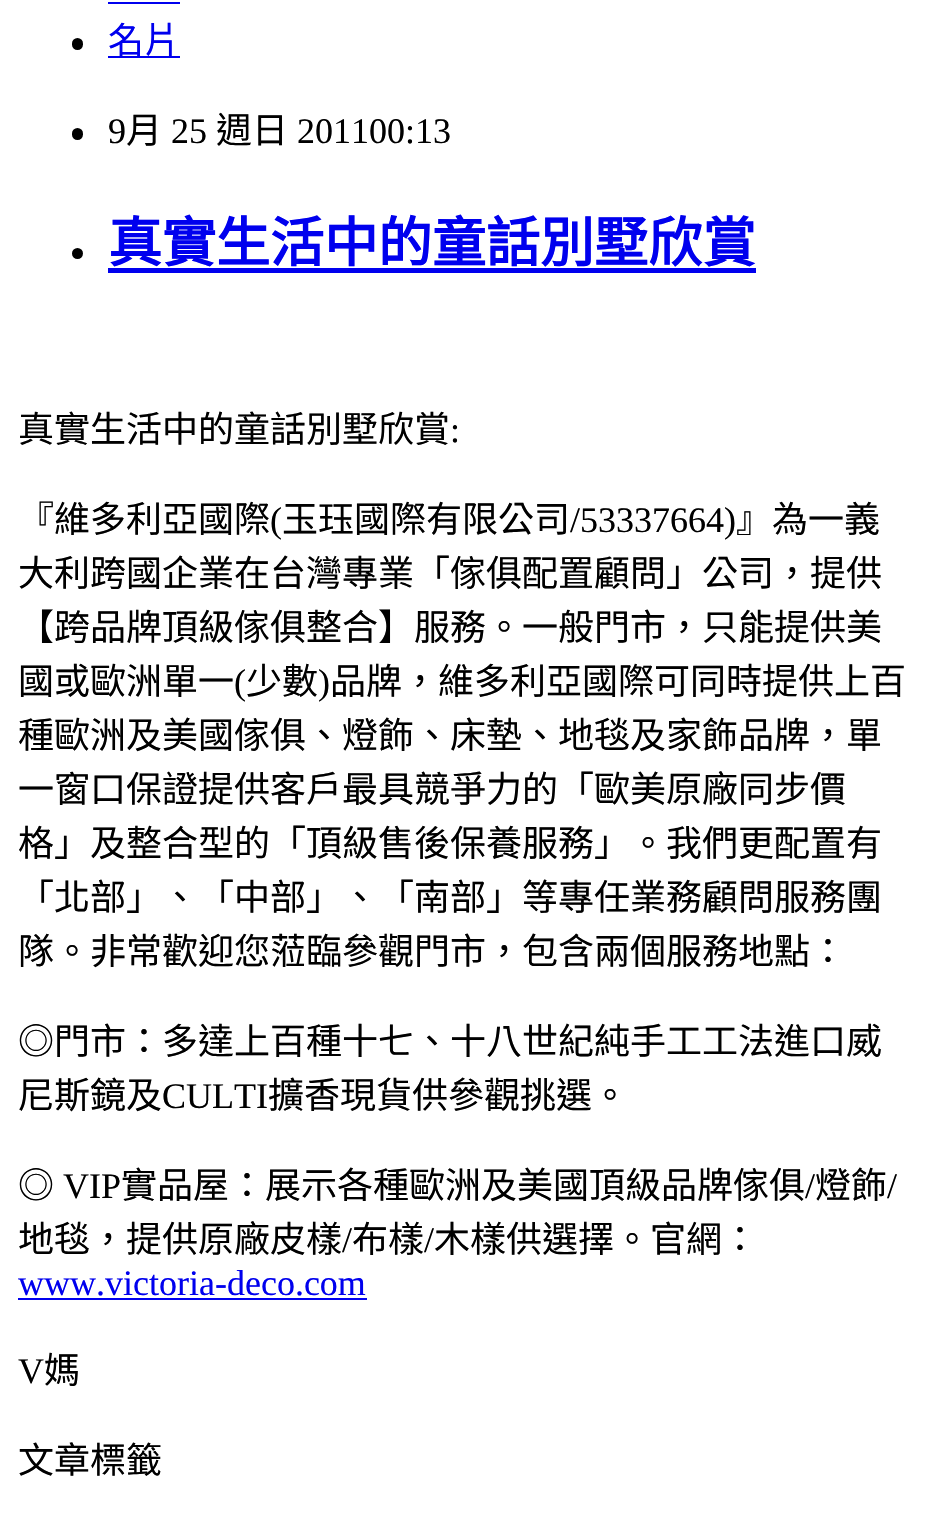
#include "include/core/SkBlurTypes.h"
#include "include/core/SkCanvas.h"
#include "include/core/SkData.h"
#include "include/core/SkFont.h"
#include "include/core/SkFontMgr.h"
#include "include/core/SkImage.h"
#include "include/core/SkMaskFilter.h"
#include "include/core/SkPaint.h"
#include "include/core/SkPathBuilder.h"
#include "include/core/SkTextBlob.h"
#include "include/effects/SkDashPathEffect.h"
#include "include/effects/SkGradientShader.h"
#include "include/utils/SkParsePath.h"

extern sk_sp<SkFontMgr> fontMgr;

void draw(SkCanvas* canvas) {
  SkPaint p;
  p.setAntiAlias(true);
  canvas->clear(SK_ColorWHITE);
  p.setColor(SkColorSetRGB(0, 0, 238));
  canvas->drawRect(SkRect::MakeLTRB(108, 2, 180, 4), p);
  p.setColor(SK_ColorBLACK);
  canvas->drawRoundRect(SkRect::MakeLTRB(72, 38, 83, 50), 5.5f, 5.5f, p);
  p.setColor(SkColorSetRGB(0, 0, 238));
  canvas->drawRect(SkRect::MakeLTRB(108, 56, 180, 58), p);
  p.setColor(SK_ColorBLACK);
  canvas->drawRoundRect(SkRect::MakeLTRB(72, 128, 83, 140), 5.5f, 5.5f, p);
  canvas->drawCircle(77.5f, 253.5f, 5.5f, p);
  p.setColor(SkColorSetRGB(0, 0, 238));
  canvas->drawRect(SkRect::MakeLTRB(108, 268, 756, 273), p);
  canvas->drawRect(SkRect::MakeLTRB(18, 1298, 367, 1300), p);
  SkFont font1(fontMgr->matchFamilyStyle("Noto Sans CJK TC", SkFontStyle::Normal()), 36);
  font1.setSubpixel(true);
  canvas->drawString("名片", 108, 53, font1, p);
  SkFont font2(fontMgr->matchFamilyStyle("Liberation Serif", SkFontStyle::Normal()), 36);
  font2.setSubpixel(true);
  p.setColor(SK_ColorBLACK);
  canvas->drawString("9", 108, 143, font2, p);
  canvas->drawString("月", 126, 143, font1, p);
  canvas->drawString("25", 171, 143, font2, p);
  canvas->drawString("週日", 216, 143, font1, p);
  canvas->drawString("201100:13", 297, 143, font2, p);
  SkFont font3(fontMgr->matchFamilyStyle("Noto Sans CJK TC", SkFontStyle::Bold()), 54);
  font3.setSubpixel(true);
  p.setColor(SkColorSetRGB(0, 0, 238));
  canvas->drawString("真實生活中的童話別墅欣賞", 108, 262, font3, p);
  p.setColor(SK_ColorBLACK);
  canvas->drawString("真實生活中的童話別墅欣賞", 18, 442, font1, p);
  canvas->drawString(":", 450, 442, font2, p);
  canvas->drawString("『維多利亞國際", 18, 532, font1, p);
  canvas->drawString("(", 270, 532, font2, p);
  canvas->drawString("玉珏國際有限公司", 282, 532, font1, p);
  canvas->drawString("/53337664)", 570, 532, font2, p);
  canvas->drawString("』為一義", 736, 532, font1, p);
  canvas->drawString("大利跨國企業在台灣專業「傢俱配置顧問」公司，提供", 18, 586, font1, p);
  canvas->drawString("【跨品牌頂級傢俱整合】服務。一般門市，只能提供美", 18, 640, font1, p);
  canvas->drawString("國或歐洲單一", 18, 694, font1, p);
  canvas->drawString("(", 234, 694, font2, p);
  canvas->drawString("少數", 246, 694, font1, p);
  canvas->drawString(")", 318, 694, font2, p);
  canvas->drawString("品牌，維多利亞國際可同時提供上百", 330, 694, font1, p);
  canvas->drawString("種歐洲及美國傢俱、燈飾、床墊、地毯及家飾品牌，單", 18, 748, font1, p);
  canvas->drawString("一窗口保證提供客戶最具競爭力的「歐美原廠同步價", 18, 802, font1, p);
  canvas->drawString("格」及整合型的「頂級售後保養服務」。我們更配置有", 18, 856, font1, p);
  canvas->drawString("「北部」、「中部」、「南部」等專任業務顧問服務團", 18, 910, font1, p);
  canvas->drawString("隊。非常歡迎您蒞臨參觀門市，包含兩個服務地點：", 18, 964, font1, p);
  canvas->drawString("◎門市：多達上百種十七、十八世紀純手工工法進口威", 18, 1054, font1, p);
  canvas->drawString("尼斯鏡及", 18, 1108, font1, p);
  canvas->drawString("CULTI", 162, 1108, font2, p);
  canvas->drawString("擴香現貨供參觀挑選。", 268, 1108, font1, p);
  canvas->drawString("◎", 18, 1198, font1, p);
  canvas->drawString("VIP", 63, 1198, font2, p);
  canvas->drawString("實品屋：展示各種歐洲及美國頂級品牌傢俱", 121, 1198, font1, p);
  canvas->drawString("/", 805, 1198, font2, p);
  canvas->drawString("燈飾", 815, 1198, font1, p);
  canvas->drawString("/", 887, 1198, font2, p);
  canvas->drawString("地毯，提供原廠皮樣", 18, 1252, font1, p);
  canvas->drawString("/", 342, 1252, font2, p);
  canvas->drawString("布樣", 352, 1252, font1, p);
  canvas->drawString("/", 424, 1252, font2, p);
  canvas->drawString("木樣供選擇。官網：", 434, 1252, font1, p);
  p.setColor(SkColorSetRGB(0, 0, 238));
  canvas->drawString("www.victoria-deco.com", 18, 1295, font2, p);
  p.setColor(SK_ColorBLACK);
  canvas->drawString("V", 18, 1383, font2, p);
  canvas->drawString("媽", 44, 1383, font1, p);
  canvas->drawString("文章標籤", 18, 1473, font1, p);
}
